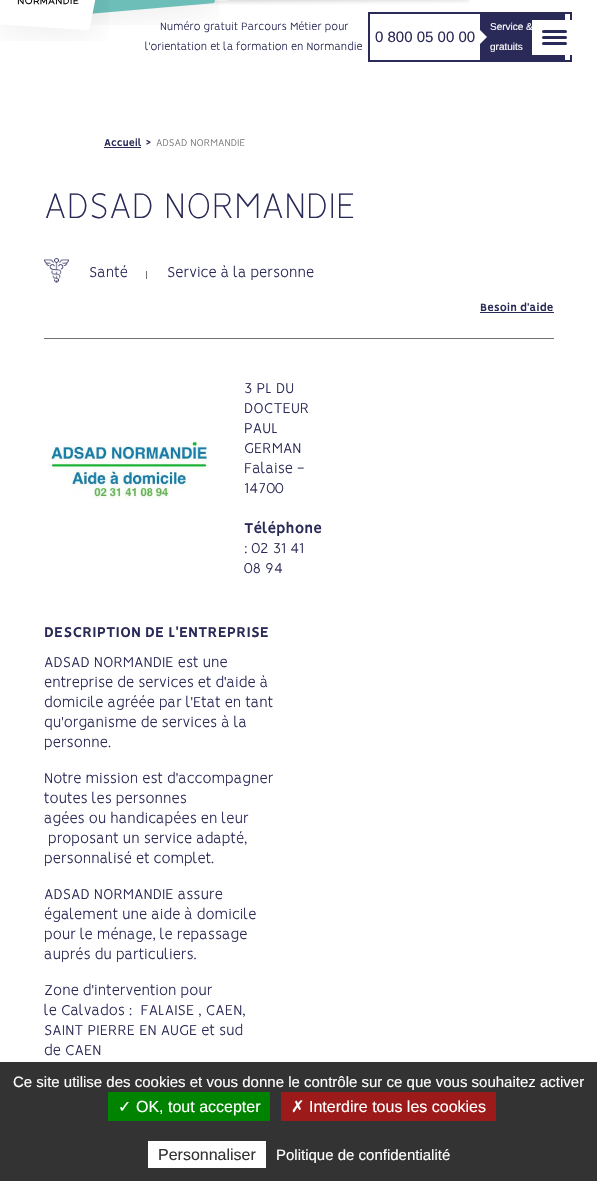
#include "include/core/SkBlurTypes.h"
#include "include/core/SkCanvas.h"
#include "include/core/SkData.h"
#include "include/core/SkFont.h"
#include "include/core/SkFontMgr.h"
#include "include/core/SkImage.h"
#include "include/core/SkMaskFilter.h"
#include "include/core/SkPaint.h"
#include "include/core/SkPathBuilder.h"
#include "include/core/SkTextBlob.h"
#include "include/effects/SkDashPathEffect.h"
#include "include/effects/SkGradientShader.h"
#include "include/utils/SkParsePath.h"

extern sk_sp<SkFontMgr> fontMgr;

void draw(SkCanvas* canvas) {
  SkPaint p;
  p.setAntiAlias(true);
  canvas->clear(SK_ColorWHITE);
  canvas->drawImageRect(SkImages::DeferredFromEncodedData(SkData::MakeFromFileName("images/3.png")), SkRect::MakeLTRB(192, 0, 470, 5), SkSamplingOptions());
  p.setStyle(SkPaint::kStroke_Style);
  p.setStrokeWidth(2);
  p.setColor(SkColorSetRGB(42, 42, 88));
  canvas->drawRect(SkRect::MakeLTRB(369, 13, 571, 61), p);
  p.setStyle(SkPaint::kFill_Style);
  canvas->drawRect(SkRect::MakeLTRB(480, 14, 565, 60), p);
  p.setStyle(SkPaint::kStroke_Style);
  p.setStrokeWidth(10);
  p.setColor(SK_ColorWHITE);
  canvas->drawRect(SkRect::MakeLTRB(537, 25, 572, 50), p);
  p.setStyle(SkPaint::kFill_Style);
  canvas->drawRect(SkRect::MakeLTRB(542, 30, 565, 45), p);
  p.setColor(SkColorSetRGB(42, 42, 88));
  canvas->drawRoundRect(SkRect::MakeLTRB(542, 30, 567, 33), 1.5f, 1.5f, p);
  canvas->drawRoundRect(SkRect::MakeLTRB(542, 36, 567, 39), 1.5f, 1.5f, p);
  canvas->drawRoundRect(SkRect::MakeLTRB(542, 42, 567, 45), 1.5f, 1.5f, p);
  p.setColor(SK_ColorWHITE);
  canvas->drawPath(SkPathBuilder().moveTo(480, 44).lineTo(480, 30).lineTo(487, 37).close().detach(), p);
  p.setColor(SkColorSetRGB(42, 42, 88));
  canvas->drawRect(SkRect::MakeLTRB(104, 147, 141, 148), p);
  p.setColor(SkColorSetRGB(112, 112, 112));
  canvas->drawRect(SkRect::MakeLTRB(44, 338, 554, 339), p);
  canvas->drawImageRect(SkImages::DeferredFromEncodedData(SkData::MakeFromFileName("images/4.png")), SkRect::MakeLTRB(44, 258, 69, 283), SkSamplingOptions());
  canvas->drawRect(SkRect::MakeLTRB(146, 271, 147, 279), p);
  p.setColor(SkColorSetRGB(42, 42, 88));
  canvas->drawRect(SkRect::MakeLTRB(480, 312, 554, 313), p);
  canvas->drawImageRect(SkImages::DeferredFromEncodedData(SkData::MakeFromFileName("images/5.png")), SkRect::MakeLTRB(49, 439, 209, 499), SkSamplingOptions());
  p.setColor(SkColorSetRGB(51, 51, 51));
  canvas->drawRect(SkRect::MakeLTRB(0, 1062, 597, 1181), p);
  p.setColor(SkColorSetRGB(0, 131, 0));
  canvas->drawRect(SkRect::MakeLTRB(108, 1092, 270, 1121), p);
  p.setColor(SkColorSetRGB(156, 26, 26));
  canvas->drawRect(SkRect::MakeLTRB(281, 1092, 496, 1121), p);
  p.setColor(SK_ColorWHITE);
  canvas->drawRect(SkRect::MakeLTRB(148, 1141, 266, 1168), p);
  SkFont font1(fontMgr->matchFamilyStyle("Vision", SkFontStyle(300, SkFontStyle::kNormal_Width, SkFontStyle::kUpright_Slant)), 12);
  font1.setSubpixel(true);
  p.setColor(SkColorSetRGB(42, 42, 88));
  canvas->drawString("Numéro gratuit Parcours Métier pour", 160, 30, font1, p);
  canvas->drawImageRect(SkImages::DeferredFromEncodedData(SkData::MakeFromFileName("images/2.png")), SkRect::MakeLTRB(91, 0, 219, 25), SkSamplingOptions());
  canvas->drawImageRect(SkImages::DeferredFromEncodedData(SkData::MakeFromFileName("images/1.png")), SkRect::MakeLTRB(0, 0, 109, 41), SkSamplingOptions());
  canvas->drawString("l'orientation et la formation en Normandie", 145, 50, font1, p);
  SkFont font2(fontMgr->matchFamilyStyle("Liberation Sans", SkFontStyle::Normal()), 15);
  font2.setSubpixel(true);
  canvas->drawString("0 800 05 00 00", 375, 42, font2, p);
  SkFont font3(fontMgr->matchFamilyStyle("Liberation Sans", SkFontStyle::Normal()), 10);
  font3.setSubpixel(true);
  p.setColor(SK_ColorWHITE);
  canvas->drawString("Service &", 490, 30, font3, p);
  canvas->drawString("gratuits", 490, 50, font3, p);
  SkFont font4(fontMgr->matchFamilyStyle("Vision", SkFontStyle::Bold()), 11);
  font4.setSubpixel(true);
  p.setColor(SkColorSetRGB(42, 42, 88));
  canvas->drawString("Accueil", 104, 146, font4, p);
  canvas->drawString(">", 146, 146, font4, p);
  SkFont font5(fontMgr->matchFamilyStyle("Vision", SkFontStyle(300, SkFontStyle::kNormal_Width, SkFontStyle::kUpright_Slant)), 11);
  font5.setSubpixel(true);
  p.setColor(SkColorSetRGB(119, 119, 119));
  canvas->drawString("ADSAD NORMANDIE", 156, 146, font5, p);
  SkFont font6(fontMgr->matchFamilyStyle("Vision", SkFontStyle(100, SkFontStyle::kNormal_Width, SkFontStyle::kUpright_Slant)), 40);
  font6.setSubpixel(true);
  p.setColor(SkColorSetRGB(42, 42, 88));
  canvas->drawString("ADSAD NORMANDIE", 44, 218, font6, p);
  SkFont font7(fontMgr->matchFamilyStyle("Vision", SkFontStyle(300, SkFontStyle::kNormal_Width, SkFontStyle::kUpright_Slant)), 16);
  font7.setSubpixel(true);
  canvas->drawString("Santé", 89, 277, font7, p);
  canvas->drawString("Service à la personne", 167, 277, font7, p);
  SkFont font8(fontMgr->matchFamilyStyle("Vision", SkFontStyle::Bold()), 12);
  font8.setSubpixel(true);
  canvas->drawString("Besoin d'aide", 480, 311, font8, p);
  canvas->drawString("3 PL DU", 244, 393, font7, p);
  canvas->drawString("DOCTEUR", 244, 413, font7, p);
  canvas->drawString("PAUL", 244, 433, font7, p);
  canvas->drawString("GERMAN", 244, 453, font7, p);
  canvas->drawString("Falaise -", 244, 473, font7, p);
  canvas->drawString("14700", 244, 493, font7, p);
  SkFont font9(fontMgr->matchFamilyStyle("Vision", SkFontStyle::Bold()), 16);
  font9.setSubpixel(true);
  canvas->drawString("Téléphone", 244, 533, font9, p);
  canvas->drawString(": 02 31 41", 244, 553, font7, p);
  canvas->drawString("08 94", 244, 573, font7, p);
  canvas->drawString("DESCRIPTION DE L'ENTREPRISE", 44, 637, font9, p);
  canvas->drawString("ADSAD NORMANDIE est une", 44, 667, font7, p);
  canvas->drawString("entreprise de services et d'aide à", 44, 687, font7, p);
  canvas->drawString("domicile agréée par l'Etat en tant", 44, 707, font7, p);
  canvas->drawString("qu'organisme de services à la", 44, 727, font7, p);
  canvas->drawString("personne.", 44, 747, font7, p);
  canvas->drawString("Notre mission est d'accompagner", 44, 783, font7, p);
  canvas->drawString("toutes les personnes", 44, 803, font7, p);
  canvas->drawString("agées ou handicapées en leur", 44, 823, font7, p);
  canvas->drawString("proposant un service adapté,", 48, 843, font7, p);
  canvas->drawString("personnalisé et complet.", 44, 863, font7, p);
  canvas->drawString("ADSAD NORMANDIE assure", 44, 899, font7, p);
  canvas->drawString("également une aide à domicile", 44, 919, font7, p);
  canvas->drawString("pour le ménage, le repassage", 44, 939, font7, p);
  canvas->drawString("auprés du particuliers.", 44, 959, font7, p);
  canvas->drawString("Zone d'intervention pour", 44, 995, font7, p);
  canvas->drawString("le Calvados :  FALAISE , CAEN,", 44, 1015, font7, p);
  canvas->drawString("SAINT PIERRE EN AUGE et sud", 44, 1035, font7, p);
  canvas->drawString("de CAEN", 44, 1055, font7, p);
  p.setColor(SK_ColorWHITE);
  canvas->drawString("Ce site utilise des cookies et vous donne le contrôle sur ce que vous souhaitez activer", 13, 1087, font2, p);
  SkFont font10(fontMgr->matchFamilyStyle("DejaVu Sans", SkFontStyle::Normal()), 16);
  font10.setSubpixel(true);
  canvas->drawString("✓", 118, 1112, font10, p);
  SkFont font11(fontMgr->matchFamilyStyle("Liberation Sans", SkFontStyle::Normal()), 16);
  font11.setSubpixel(true);
  canvas->drawString("OK, tout accepter", 136, 1112, font11, p);
  canvas->drawString("✗", 291, 1112, font10, p);
  canvas->drawString("Interdire tous les cookies", 309, 1112, font11, p);
  p.setColor(SkColorSetRGB(51, 51, 51));
  canvas->drawString("Personnaliser", 158, 1160, font11, p);
  p.setColor(SK_ColorWHITE);
  canvas->drawString("Politique de confidentialité", 276, 1160, font2, p);
}
